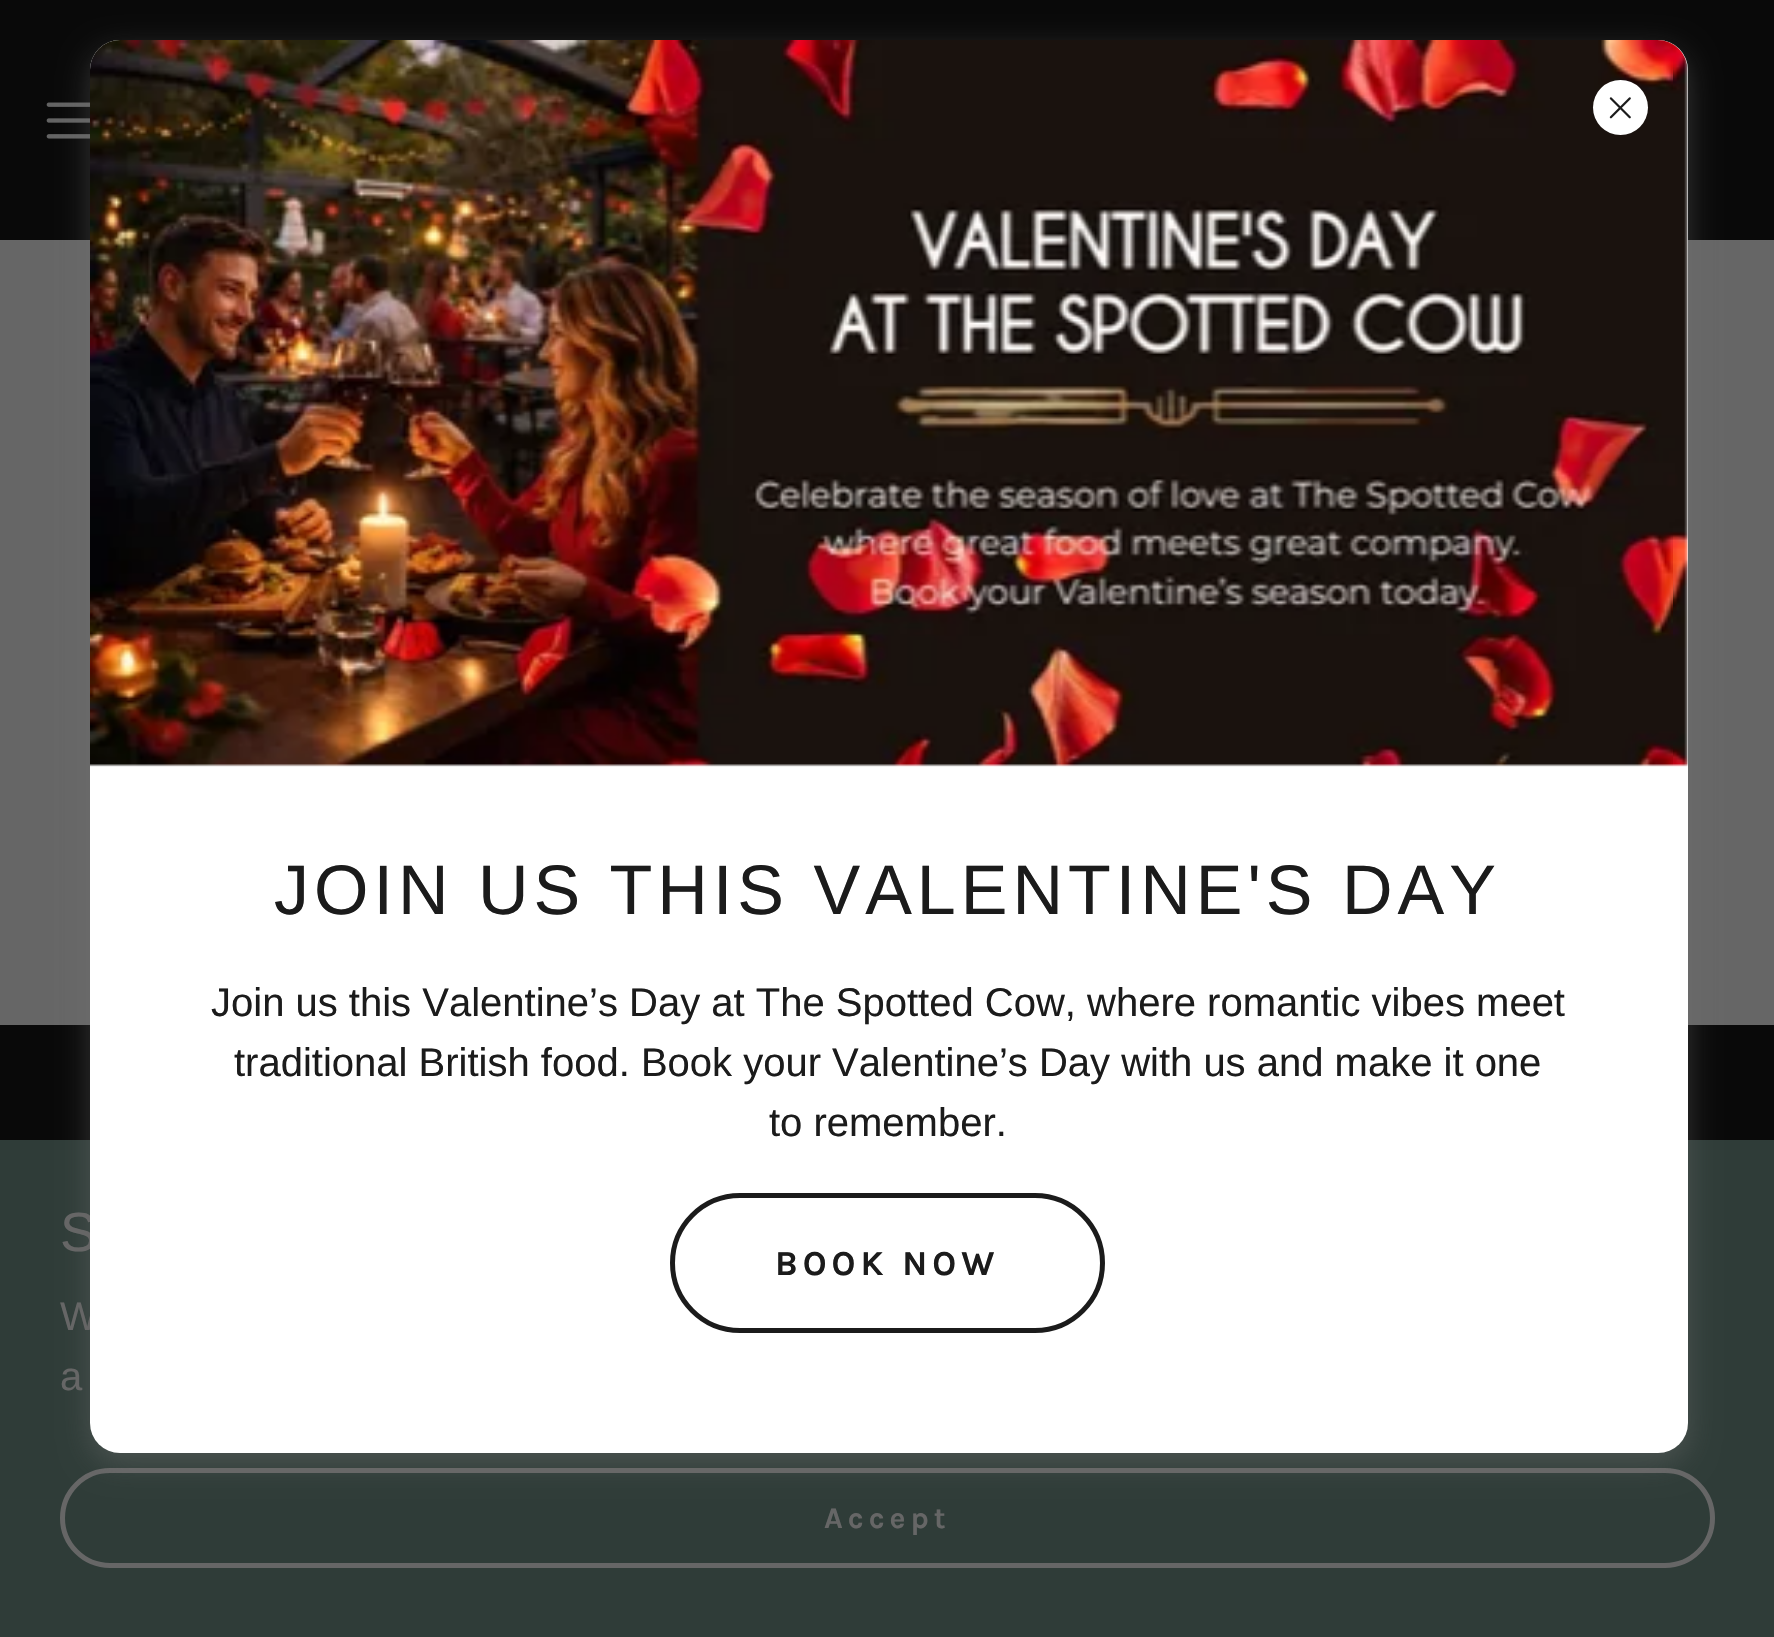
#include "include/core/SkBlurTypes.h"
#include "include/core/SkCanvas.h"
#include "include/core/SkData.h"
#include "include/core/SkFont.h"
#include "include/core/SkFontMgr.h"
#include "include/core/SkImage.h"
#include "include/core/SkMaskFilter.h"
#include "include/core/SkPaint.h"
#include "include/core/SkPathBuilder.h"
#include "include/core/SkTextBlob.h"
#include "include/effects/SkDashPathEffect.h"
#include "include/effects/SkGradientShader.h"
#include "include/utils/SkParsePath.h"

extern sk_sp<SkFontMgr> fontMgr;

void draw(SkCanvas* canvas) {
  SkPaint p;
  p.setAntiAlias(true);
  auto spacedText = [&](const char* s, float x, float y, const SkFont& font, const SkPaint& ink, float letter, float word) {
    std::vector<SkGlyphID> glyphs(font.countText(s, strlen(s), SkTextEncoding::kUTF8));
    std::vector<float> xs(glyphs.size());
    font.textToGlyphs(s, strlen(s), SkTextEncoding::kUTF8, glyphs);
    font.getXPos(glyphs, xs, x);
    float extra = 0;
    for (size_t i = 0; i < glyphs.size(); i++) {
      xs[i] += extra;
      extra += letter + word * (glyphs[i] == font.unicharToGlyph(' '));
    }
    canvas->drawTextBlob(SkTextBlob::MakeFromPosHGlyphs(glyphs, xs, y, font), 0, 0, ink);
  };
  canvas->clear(SkColorSetRGB(9, 9, 9));
  canvas->drawImageRect(SkImages::DeferredFromEncodedData(SkData::MakeFromFileName("images/1.png")), SkRect::MakeLTRB(703, 39, 706, 40), SkSamplingOptions());
  canvas->drawImageRect(SkImages::DeferredFromEncodedData(SkData::MakeFromFileName("images/2.png")), SkRect::MakeLTRB(46, 102, 90, 139), SkSamplingOptions());
  p.setColor(SkColorSetRGB(102, 102, 102));
  canvas->drawRect(SkRect::MakeLTRB(0, 240, 1774, 1025), p);
  p.setColor(SkColorSetRGB(47, 60, 56));
  canvas->drawRect(SkRect::MakeLTRB(0, 1140, 1774, 1637), p);
  p.setStyle(SkPaint::kStroke_Style);
  p.setStrokeWidth(5);
  p.setColor(SkColorSetRGB(102, 102, 102));
  canvas->drawRoundRect(SkRect::MakeLTRB(62.5f, 1470.5f, 1712.5f, 1565.5f), 47.5f, 47.5f, p);
  p.setStyle(SkPaint::kFill_Style);
  p.setColor(SkColorSetARGB(102, 117, 117, 117));
  p.setMaskFilter(SkMaskFilter::MakeBlur(kNormal_SkBlurStyle, 15));
  canvas->drawRoundRect(SkRect::MakeLTRB(90, 50, 1688, 1463), 30, 30, p);
  p.setMaskFilter(nullptr);
  SkFont font1(fontMgr->matchFamilyStyle("Liberation Sans", SkFontStyle::Normal()), 55);
  font1.setSubpixel(true);
  p.setColor(SkColorSetRGB(102, 102, 102));
  spacedText("S", 60, 1251, font1, p, 5, 0);
  SkFont font2(fontMgr->matchFamilyStyle("Liberation Sans", SkFontStyle::Normal()), 40);
  font2.setSubpixel(true);
  canvas->drawString("W", 60, 1330, font2, p);
  p.setColor(SK_ColorWHITE);
  canvas->drawRoundRect(SkRect::MakeLTRB(90, 40, 1688, 1453), 30, 30, p);
  canvas->drawImageRect(SkImages::DeferredFromEncodedData(SkData::MakeFromFileName("images/4.png")), SkRect::MakeLTRB(90, 40, 1688, 767), SkSamplingOptions());
  canvas->drawCircle(1620.5f, 107.5f, 27.5f, p);
  canvas->drawImageRect(SkImages::DeferredFromEncodedData(SkData::MakeFromFileName("images/3.png")), SkRect::MakeLTRB(1609, 97, 1631, 119), SkSamplingOptions());
  p.setStyle(SkPaint::kStroke_Style);
  p.setColor(SkColorSetRGB(27, 27, 27));
  canvas->drawRoundRect(SkRect::MakeLTRB(672.5f, 1195.5f, 1102.5f, 1330.5f), 67.5f, 67.5f, p);
  SkFont font3(fontMgr->matchFamilyStyle("Karla", SkFontStyle::Bold()), 35);
  font3.setSubpixel(true);
  p.setStyle(SkPaint::kFill_Style);
  spacedText("BOOK NOW", 775, 1275, font3, p, 5, 0);
  canvas->drawString("to remember.", 769, 1136, font2, p);
  canvas->drawString("traditional British food. Book your Valentine’s Day with us and make it one", 234, 1076, font2, p);
  canvas->drawString("Join us this Valentine’s Day at The Spotted Cow, where romantic vibes meet", 211, 1016, font2, p);
  SkFont font4(fontMgr->matchFamilyStyle("Liberation Sans", SkFontStyle::Normal()), 70);
  font4.setSubpixel(true);
  spacedText("JOIN US THIS VALENTINE'S DAY", 274, 914, font4, p, 5, 0);
  p.setColor(SkColorSetRGB(102, 102, 102));
  canvas->drawString("a", 60, 1390, font2, p);
  SkFont font5(fontMgr->matchFamilyStyle("Karla", SkFontStyle::Bold()), 30);
  font5.setSubpixel(true);
  spacedText("Accept", 824, 1528, font5, p, 5, 0);
}
